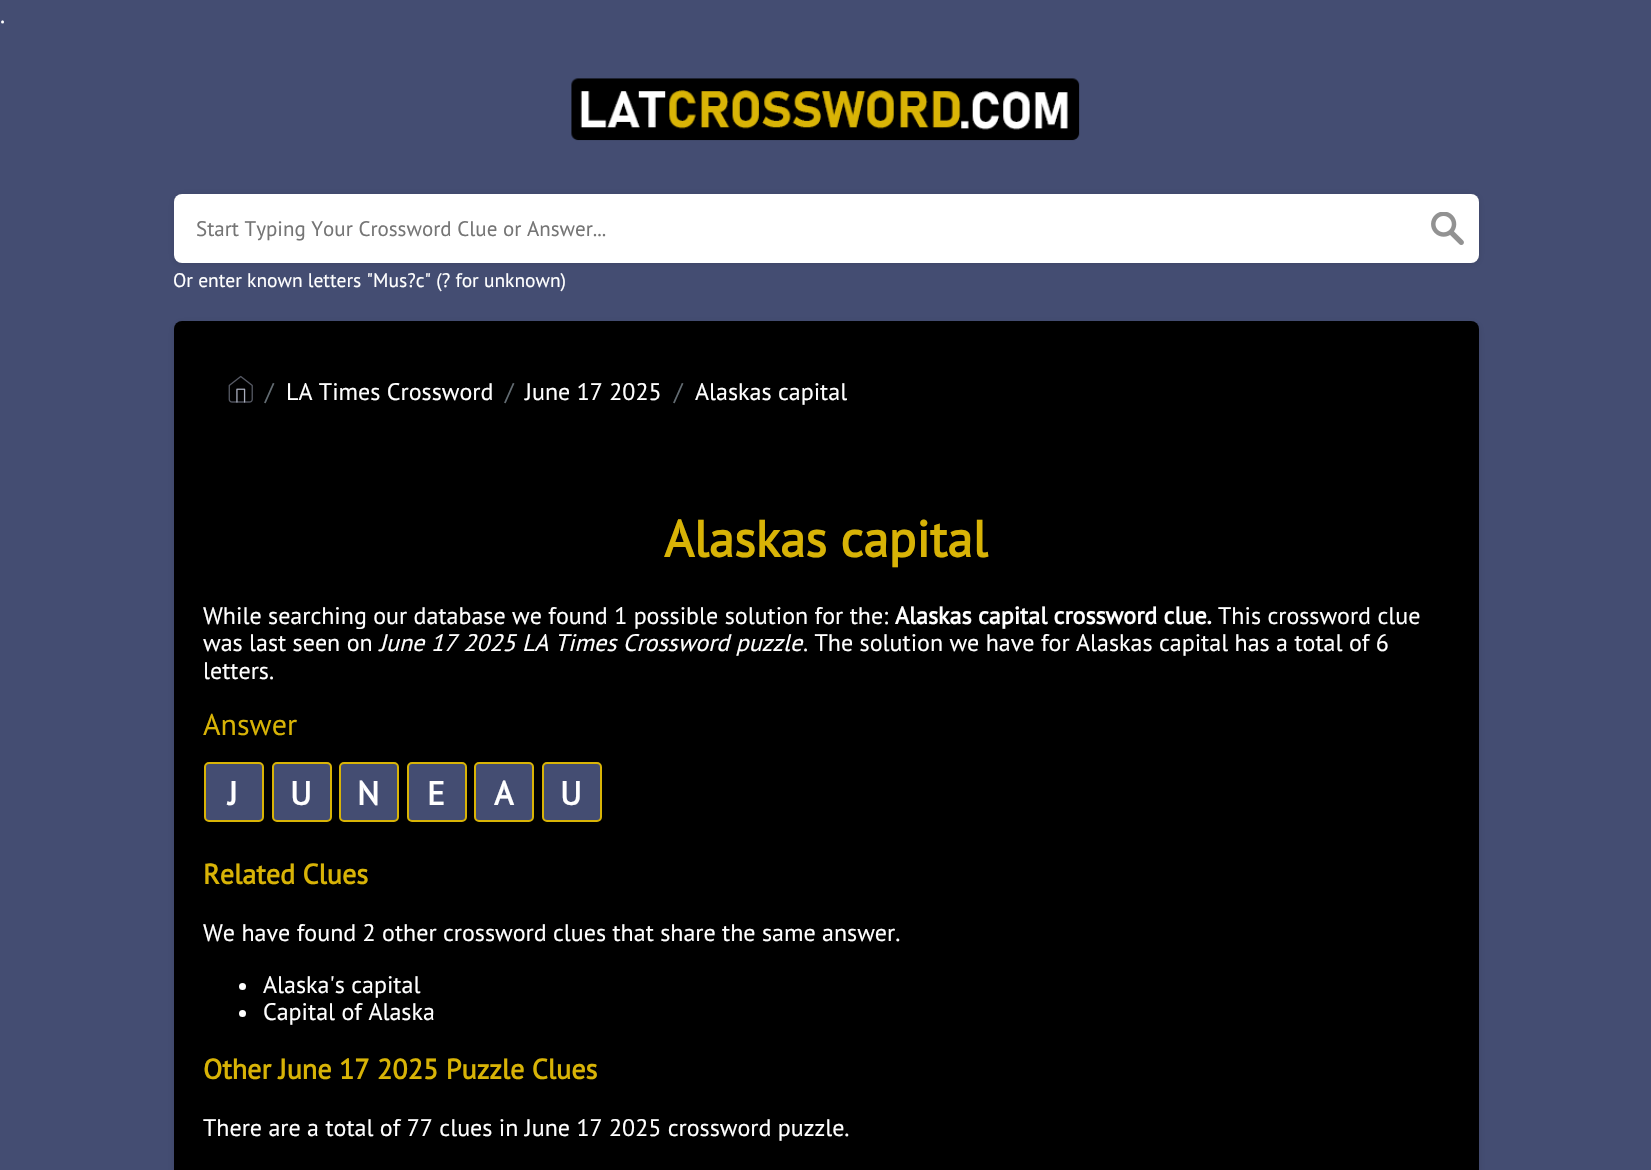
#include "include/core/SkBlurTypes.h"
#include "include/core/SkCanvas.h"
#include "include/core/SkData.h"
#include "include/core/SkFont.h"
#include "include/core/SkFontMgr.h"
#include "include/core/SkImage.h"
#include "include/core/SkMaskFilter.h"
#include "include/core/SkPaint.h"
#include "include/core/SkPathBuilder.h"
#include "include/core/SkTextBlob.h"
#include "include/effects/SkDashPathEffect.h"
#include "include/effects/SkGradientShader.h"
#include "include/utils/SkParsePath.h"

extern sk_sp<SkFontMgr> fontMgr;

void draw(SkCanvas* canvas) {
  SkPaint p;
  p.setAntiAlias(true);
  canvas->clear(SkColorSetRGB(68, 77, 114));
  canvas->drawImageRect(SkImages::DeferredFromEncodedData(SkData::MakeFromFileName("images/1.png")), SkRect::MakeLTRB(571, 78, 1080, 141), SkSamplingOptions());
  p.setColor(SkColorSetARGB(26, 0, 0, 0));
  p.setMaskFilter(SkMaskFilter::MakeBlur(kNormal_SkBlurStyle, 3));
  canvas->drawRoundRect(SkRect::MakeLTRB(174, 195, 1479, 264), 8, 8, p);
  p.setMaskFilter(nullptr);
  p.setColor(SK_ColorWHITE);
  canvas->drawRoundRect(SkRect::MakeLTRB(174, 194, 1479, 263), 8, 8, p);
  canvas->drawImageRect(SkImages::DeferredFromEncodedData(SkData::MakeFromFileName("images/2.png")), SkRect::MakeLTRB(1431, 212, 1464, 245), SkSamplingOptions());
  p.setColor(SkColorSetARGB(26, 0, 0, 0));
  p.setMaskFilter(SkMaskFilter::MakeBlur(kNormal_SkBlurStyle, 3));
  canvas->drawRoundRect(SkRect::MakeLTRB(174, 323, 1479, 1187), 8, 8, p);
  p.setMaskFilter(nullptr);
  p.setColor(SK_ColorBLACK);
  canvas->drawRoundRect(SkRect::MakeLTRB(174, 321, 1479, 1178), 8, 8, p);
  canvas->drawImageRect(SkImages::DeferredFromEncodedData(SkData::MakeFromFileName("images/3.png")), SkRect::MakeLTRB(228, 375, 253, 403), SkSamplingOptions());
  p.setColor(SkColorSetRGB(68, 77, 114));
  canvas->drawRoundRect(SkRect::MakeLTRB(205, 763, 263, 821), 4, 4, p);
  p.setStyle(SkPaint::kStroke_Style);
  p.setStrokeWidth(2);
  p.setColor(SkColorSetRGB(217, 180, 6));
  canvas->drawRoundRect(SkRect::MakeLTRB(205, 763, 263, 821), 4, 4, p);
  p.setStyle(SkPaint::kFill_Style);
  p.setColor(SkColorSetRGB(68, 77, 114));
  canvas->drawRoundRect(SkRect::MakeLTRB(273, 763, 331, 821), 4, 4, p);
  p.setStyle(SkPaint::kStroke_Style);
  p.setColor(SkColorSetRGB(217, 180, 6));
  canvas->drawRoundRect(SkRect::MakeLTRB(273, 763, 331, 821), 4, 4, p);
  p.setStyle(SkPaint::kFill_Style);
  p.setColor(SkColorSetRGB(68, 77, 114));
  canvas->drawRoundRect(SkRect::MakeLTRB(340, 763, 398, 821), 4, 4, p);
  p.setStyle(SkPaint::kStroke_Style);
  p.setColor(SkColorSetRGB(217, 180, 6));
  canvas->drawRoundRect(SkRect::MakeLTRB(340, 763, 398, 821), 4, 4, p);
  p.setStyle(SkPaint::kFill_Style);
  p.setColor(SkColorSetRGB(68, 77, 114));
  canvas->drawRoundRect(SkRect::MakeLTRB(408, 763, 466, 821), 4, 4, p);
  p.setStyle(SkPaint::kStroke_Style);
  p.setColor(SkColorSetRGB(217, 180, 6));
  canvas->drawRoundRect(SkRect::MakeLTRB(408, 763, 466, 821), 4, 4, p);
  p.setStyle(SkPaint::kFill_Style);
  p.setColor(SkColorSetRGB(68, 77, 114));
  canvas->drawRoundRect(SkRect::MakeLTRB(475, 763, 533, 821), 4, 4, p);
  p.setStyle(SkPaint::kStroke_Style);
  p.setColor(SkColorSetRGB(217, 180, 6));
  canvas->drawRoundRect(SkRect::MakeLTRB(475, 763, 533, 821), 4, 4, p);
  p.setStyle(SkPaint::kFill_Style);
  p.setColor(SkColorSetRGB(68, 77, 114));
  canvas->drawRoundRect(SkRect::MakeLTRB(543, 763, 601, 821), 4, 4, p);
  p.setStyle(SkPaint::kStroke_Style);
  p.setColor(SkColorSetRGB(217, 180, 6));
  canvas->drawRoundRect(SkRect::MakeLTRB(543, 763, 601, 821), 4, 4, p);
  p.setStyle(SkPaint::kFill_Style);
  p.setColor(SK_ColorWHITE);
  canvas->drawCircle(242.5f, 986.5f, 3.5f, p);
  canvas->drawCircle(242.5f, 1013.5f, 3.5f, p);
  SkFont font1(fontMgr->matchFamilyStyle("PT Sans", SkFontStyle::Normal()), 24);
  font1.setSubpixel(true);
  canvas->drawString(".", 0, 23, font1, p);
  SkFont font2(fontMgr->matchFamilyStyle("PT Sans", SkFontStyle::Normal()), 21);
  font2.setSubpixel(true);
  p.setColor(SkColorSetRGB(117, 117, 117));
  canvas->drawString("Start Typing Your Crossword Clue or Answer...", 196, 236, font2, p);
  SkFont font3(fontMgr->matchFamilyStyle("PT Sans", SkFontStyle::Normal()), 19.5f);
  font3.setSubpixel(true);
  p.setColor(SK_ColorWHITE);
  canvas->drawString("Or enter known letters \"Mus?c\" (? for unknown)", 173, 287, font3, p);
  p.setColor(SkColorSetRGB(99, 108, 114));
  canvas->drawString("/", 265, 400, font1, p);
  p.setColor(SK_ColorWHITE);
  canvas->drawString("LA Times Crossword", 286, 400, font1, p);
  p.setColor(SkColorSetRGB(99, 108, 114));
  canvas->drawString("/", 505, 400, font1, p);
  p.setColor(SK_ColorWHITE);
  canvas->drawString("June 17 2025", 525, 400, font1, p);
  p.setColor(SkColorSetRGB(99, 108, 114));
  canvas->drawString("/", 674, 400, font1, p);
  p.setColor(SK_ColorWHITE);
  canvas->drawString("Alaskas capital", 695, 400, font1, p);
  SkFont font4(fontMgr->matchFamilyStyle("PT Sans", SkFontStyle::Bold()), 51);
  font4.setSubpixel(true);
  p.setColor(SkColorSetRGB(216, 179, 6));
  canvas->drawString("Alaskas capital", 664, 557, font4, p);
  p.setColor(SK_ColorWHITE);
  canvas->drawString("While searching our database we found 1 possible solution for the:", 203, 624, font1, p);
  SkFont font5(fontMgr->matchFamilyStyle("PT Sans", SkFontStyle::Bold()), 24);
  font5.setSubpixel(true);
  canvas->drawString("Alaskas capital crossword clue.", 895, 624, font5, p);
  canvas->drawString("This crossword clue", 1218, 624, font1, p);
  canvas->drawString("was last seen on", 203, 651, font1, p);
  SkFont font6(fontMgr->matchFamilyStyle("PT Sans", SkFontStyle::Italic()), 24);
  font6.setSubpixel(true);
  canvas->drawString("June 17 2025 LA Times Crossword puzzle", 379, 651, font6, p);
  canvas->drawString(". The solution we have for Alaskas capital has a total of 6", 803, 651, font1, p);
  canvas->drawString("letters.", 203, 679, font1, p);
  SkFont font7(fontMgr->matchFamilyStyle("PT Sans", SkFontStyle::Normal()), 30);
  font7.setSubpixel(true);
  p.setColor(SkColorSetRGB(216, 179, 6));
  canvas->drawString("Answer", 203, 735, font7, p);
  SkFont font8(fontMgr->matchFamilyStyle("PT Sans", SkFontStyle::Bold()), 33);
  font8.setSubpixel(true);
  p.setColor(SK_ColorWHITE);
  canvas->drawString("J", 228, 805, font8, p);
  canvas->drawString("U", 290, 805, font8, p);
  canvas->drawString("N", 357, 805, font8, p);
  canvas->drawString("E", 427, 805, font8, p);
  canvas->drawString("A", 494, 805, font8, p);
  canvas->drawString("U", 560, 805, font8, p);
  SkFont font9(fontMgr->matchFamilyStyle("PT Sans", SkFontStyle::Bold()), 28.1f);
  font9.setSubpixel(true);
  p.setColor(SkColorSetRGB(216, 179, 6));
  canvas->drawString("Related Clues", 203, 884, font9, p);
  p.setColor(SK_ColorWHITE);
  canvas->drawString("We have found 2 other crossword clues that share the same answer.", 203, 941, font1, p);
  canvas->drawString("Alaska's capital", 263, 993, font1, p);
  canvas->drawString("Capital of Alaska", 263, 1020, font1, p);
  p.setColor(SkColorSetRGB(216, 179, 6));
  canvas->drawString("Other June 17 2025 Puzzle Clues", 203, 1079, font9, p);
  p.setColor(SK_ColorWHITE);
  canvas->drawString("There are a total of 77 clues in June 17 2025 crossword puzzle.", 203, 1136, font1, p);
}
